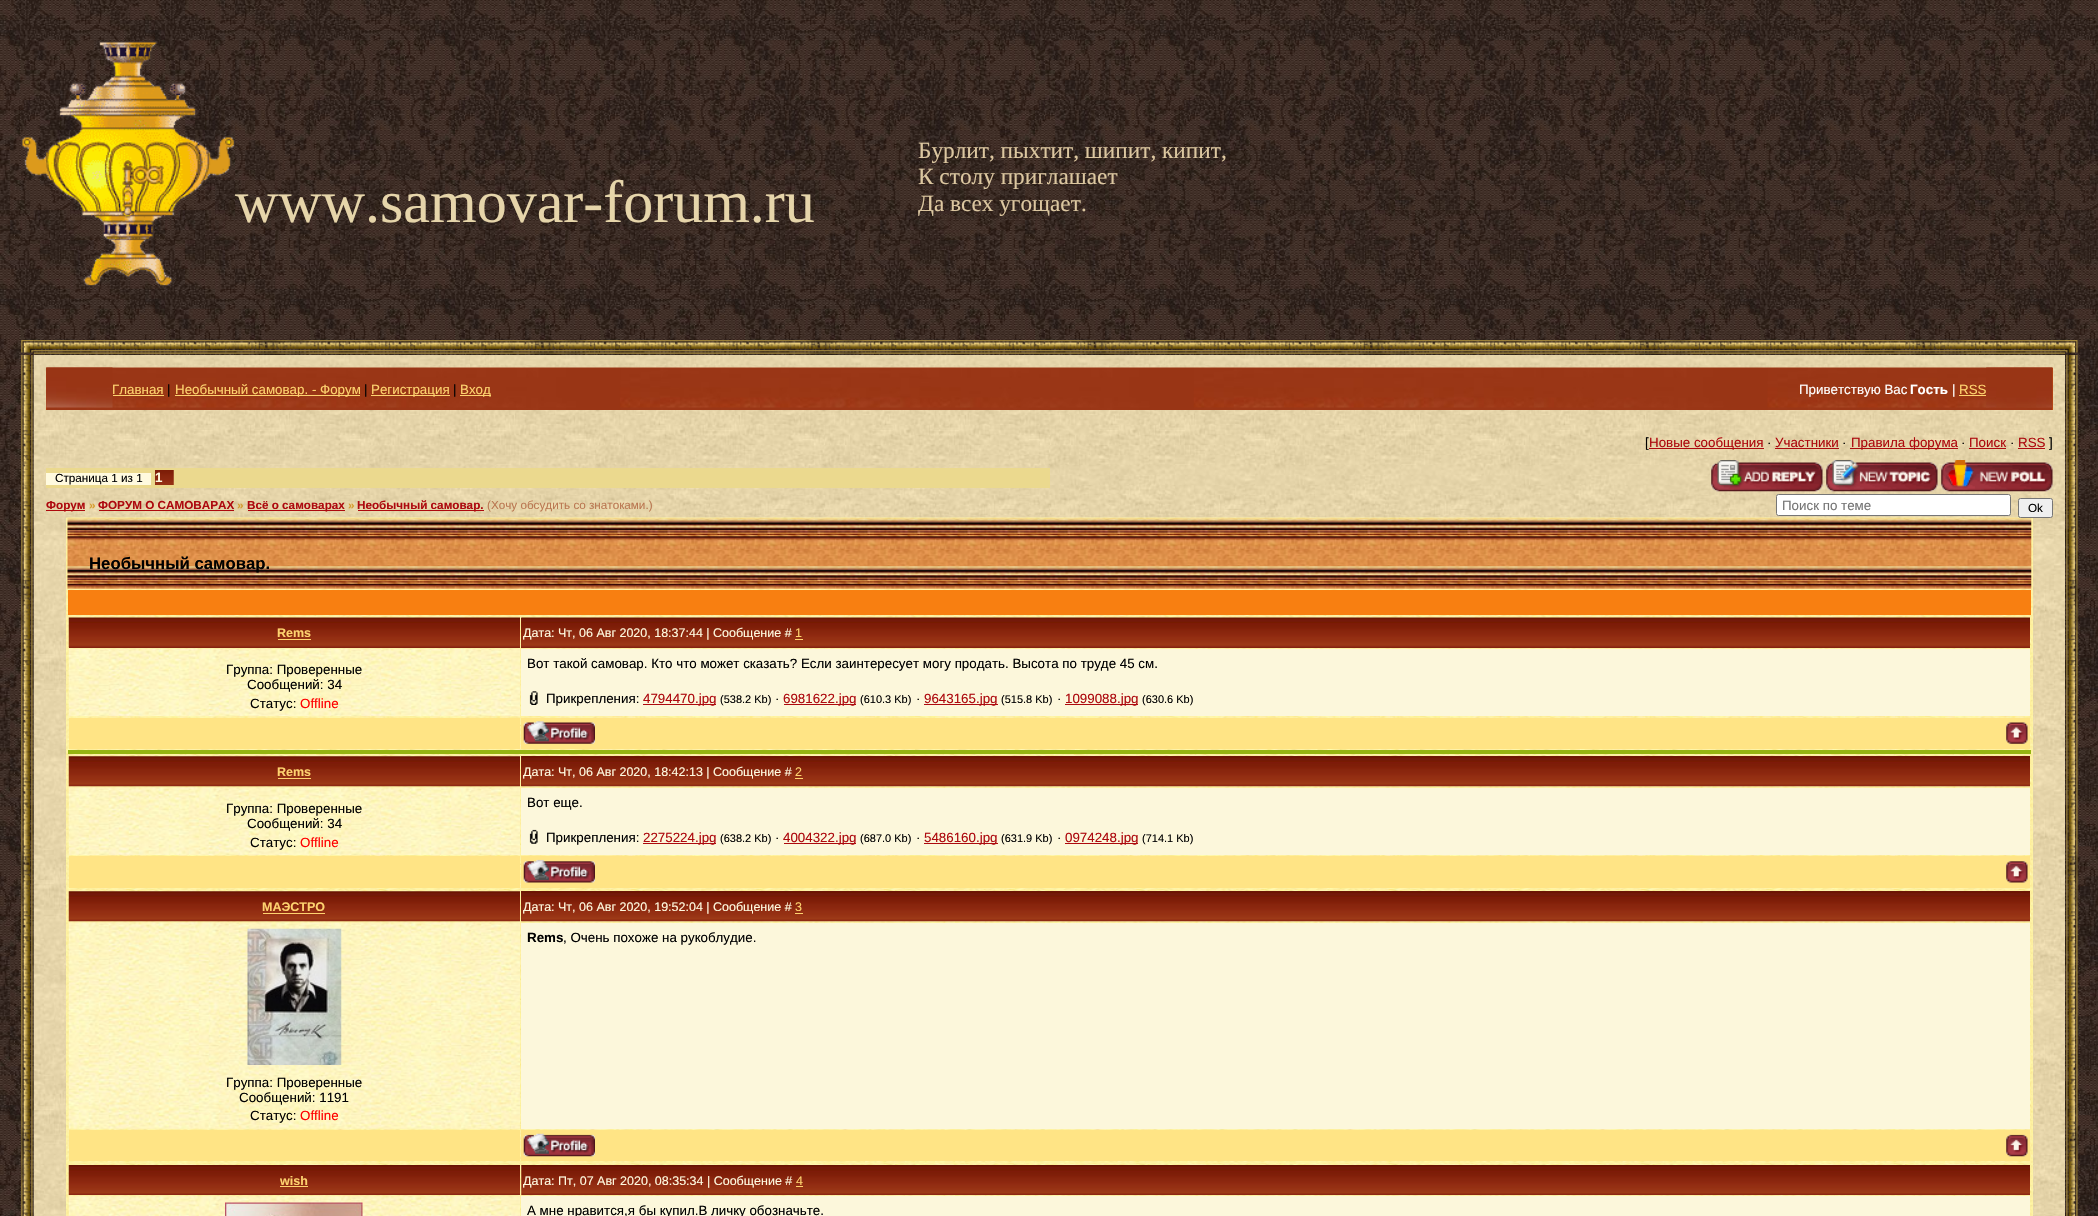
#include "include/core/SkBlurTypes.h"
#include "include/core/SkCanvas.h"
#include "include/core/SkData.h"
#include "include/core/SkFont.h"
#include "include/core/SkFontMgr.h"
#include "include/core/SkImage.h"
#include "include/core/SkMaskFilter.h"
#include "include/core/SkPaint.h"
#include "include/core/SkPathBuilder.h"
#include "include/core/SkTextBlob.h"
#include "include/effects/SkDashPathEffect.h"
#include "include/effects/SkGradientShader.h"
#include "include/utils/SkParsePath.h"

extern sk_sp<SkFontMgr> fontMgr;

void draw(SkCanvas* canvas) {
  SkPaint p;
  p.setAntiAlias(true);
  canvas->clear(SK_ColorWHITE);
  canvas->drawImageRect(SkImages::DeferredFromEncodedData(SkData::MakeFromFileName("images/1.png")), SkRect::MakeLTRB(0, 0, 2098, 1216), SkSamplingOptions());
  canvas->drawImageRect(SkImages::DeferredFromEncodedData(SkData::MakeFromFileName("images/2.png")), SkRect::MakeLTRB(21, 41, 235, 287), SkSamplingOptions());
  canvas->drawImageRect(SkImages::DeferredFromEncodedData(SkData::MakeFromFileName("images/4.png")), SkRect::MakeLTRB(33, 340, 2065, 355), SkSamplingOptions());
  canvas->drawImageRect(SkImages::DeferredFromEncodedData(SkData::MakeFromFileName("images/3.png")), SkRect::MakeLTRB(21, 340, 34, 353), SkSamplingOptions());
  canvas->drawImageRect(SkImages::DeferredFromEncodedData(SkData::MakeFromFileName("images/5.png")), SkRect::MakeLTRB(2065, 340, 2078, 353), SkSamplingOptions());
  canvas->drawImageRect(SkImages::DeferredFromEncodedData(SkData::MakeFromFileName("images/6.png")), SkRect::MakeLTRB(21, 355, 34, 1216), SkSamplingOptions());
  canvas->drawImageRect(SkImages::DeferredFromEncodedData(SkData::MakeFromFileName("images/7.png")), SkRect::MakeLTRB(33, 355, 2065, 1216), SkSamplingOptions());
  p.setColor(SkColorSetRGB(230, 93, 3));
  canvas->drawRect(SkRect::MakeLTRB(46, 368, 2053, 410), p);
  canvas->drawImageRect(SkImages::DeferredFromEncodedData(SkData::MakeFromFileName("images/8.png")), SkRect::MakeLTRB(46, 367, 2053, 410), SkSamplingOptions());
  canvas->drawImageRect(SkImages::DeferredFromEncodedData(SkData::MakeFromFileName("images/9.png")), SkRect::MakeLTRB(46, 367, 113, 408), SkSamplingOptions());
  p.setColor(SkColorSetRGB(254, 211, 111));
  canvas->drawRect(SkRect::MakeLTRB(113, 395, 164, 396), p);
  canvas->drawRect(SkRect::MakeLTRB(175, 395, 360, 396), p);
  canvas->drawRect(SkRect::MakeLTRB(371, 395, 450, 396), p);
  canvas->drawRect(SkRect::MakeLTRB(460, 395, 491, 396), p);
  canvas->drawRect(SkRect::MakeLTRB(1959, 395, 1986, 396), p);
  canvas->drawImageRect(SkImages::DeferredFromEncodedData(SkData::MakeFromFileName("images/10.png")), SkRect::MakeLTRB(1986, 367, 2053, 408), SkSamplingOptions());
  p.setColor(SkColorSetRGB(173, 9, 14));
  canvas->drawRect(SkRect::MakeLTRB(1649, 448, 1764, 449), p);
  canvas->drawRect(SkRect::MakeLTRB(1775, 448, 1839, 449), p);
  canvas->drawRect(SkRect::MakeLTRB(1850, 448, 1958, 449), p);
  canvas->drawRect(SkRect::MakeLTRB(1969, 448, 2006, 449), p);
  canvas->drawRect(SkRect::MakeLTRB(2018, 448, 2045, 449), p);
  p.setColor(SkColorSetRGB(235, 217, 142));
  canvas->drawRect(SkRect::MakeLTRB(46, 468, 1050, 488), p);
  p.setColor(SkColorSetRGB(255, 250, 223));
  canvas->drawRect(SkRect::MakeLTRB(46, 473, 151, 485), p);
  canvas->drawImageRect(SkImages::DeferredFromEncodedData(SkData::MakeFromFileName("images/11.png")), SkRect::MakeLTRB(155, 470, 174, 485), SkSamplingOptions());
  canvas->drawImageRect(SkImages::DeferredFromEncodedData(SkData::MakeFromFileName("images/12.png")), SkRect::MakeLTRB(1711, 460, 1823, 492), SkSamplingOptions());
  canvas->drawImageRect(SkImages::DeferredFromEncodedData(SkData::MakeFromFileName("images/13.png")), SkRect::MakeLTRB(1826, 460, 1938, 492), SkSamplingOptions());
  canvas->drawImageRect(SkImages::DeferredFromEncodedData(SkData::MakeFromFileName("images/14.png")), SkRect::MakeLTRB(1941, 460, 2053, 492), SkSamplingOptions());
  p.setColor(SkColorSetRGB(173, 9, 14));
  canvas->drawRect(SkRect::MakeLTRB(46, 510, 85, 511), p);
  canvas->drawRect(SkRect::MakeLTRB(99, 510, 234, 511), p);
  canvas->drawRect(SkRect::MakeLTRB(248, 510, 345, 511), p);
  canvas->drawRect(SkRect::MakeLTRB(358, 510, 484, 511), p);
  p.setColor(SK_ColorWHITE);
  canvas->drawRoundRect(SkRect::MakeLTRB(1776.5f, 494.5f, 2010.5f, 515.5f), 2, 2, p);
  p.setStyle(SkPaint::kStroke_Style);
  p.setStrokeWidth(1);
  p.setColor(SkColorSetRGB(118, 118, 118));
  canvas->drawRoundRect(SkRect::MakeLTRB(1776.5f, 494.5f, 2010.5f, 515.5f), 2, 2, p);
  p.setStyle(SkPaint::kFill_Style);
  p.setColor(SkColorSetRGB(255, 245, 162));
  canvas->drawRect(SkRect::MakeLTRB(66, 518, 2033, 1216), p);
  canvas->drawImageRect(SkImages::DeferredFromEncodedData(SkData::MakeFromFileName("images/15.png")), SkRect::MakeLTRB(66, 517, 2033, 1216), SkSamplingOptions());
  p.setColor(SkColorSetRGB(239, 239, 239));
  canvas->drawRoundRect(SkRect::MakeLTRB(2018.5f, 498.5f, 2052.5f, 517.5f), 2, 2, p);
  p.setStyle(SkPaint::kStroke_Style);
  p.setColor(SkColorSetRGB(118, 118, 118));
  canvas->drawRoundRect(SkRect::MakeLTRB(2018.5f, 498.5f, 2052.5f, 517.5f), 2, 2, p);
  canvas->drawImageRect(SkImages::DeferredFromEncodedData(SkData::MakeFromFileName("images/16.png")), SkRect::MakeLTRB(67, 518, 2032, 589), SkSamplingOptions());
  p.setStyle(SkPaint::kFill_Style);
  p.setColor(SkColorSetRGB(248, 127, 17));
  canvas->drawRect(SkRect::MakeLTRB(68, 590, 2031, 615), p);
  p.setColor(SkColorSetRGB(149, 180, 18));
  canvas->drawRect(SkRect::MakeLTRB(68, 750, 2031, 754), p);
  canvas->drawImageRect(SkImages::DeferredFromEncodedData(SkData::MakeFromFileName("images/17.png")), SkRect::MakeLTRB(67, 616, 2032, 750), SkSamplingOptions());
  p.setColor(SkColorSetRGB(130, 33, 10));
  canvas->drawRect(SkRect::MakeLTRB(69, 647, 520, 648), p);
  canvas->drawImageRect(SkImages::DeferredFromEncodedData(SkData::MakeFromFileName("images/18.png")), SkRect::MakeLTRB(68, 617, 520, 648), SkSamplingOptions());
  p.setColor(SkColorSetRGB(254, 211, 111));
  canvas->drawRect(SkRect::MakeLTRB(278, 639, 311, 640), p);
  p.setColor(SkColorSetRGB(130, 33, 10));
  canvas->drawRect(SkRect::MakeLTRB(521, 618, 2030, 648), p);
  canvas->drawImageRect(SkImages::DeferredFromEncodedData(SkData::MakeFromFileName("images/19.png")), SkRect::MakeLTRB(521, 617, 2030, 648), SkSamplingOptions());
  p.setColor(SkColorSetRGB(254, 211, 111));
  canvas->drawRect(SkRect::MakeLTRB(795, 639, 803, 640), p);
  canvas->drawImageRect(SkImages::DeferredFromEncodedData(SkData::MakeFromFileName("images/20.png")), SkRect::MakeLTRB(68, 648, 520, 717), SkSamplingOptions());
  p.setColor(SkColorSetRGB(252, 247, 219));
  canvas->drawRect(SkRect::MakeLTRB(521, 649, 2030, 716), p);
  canvas->drawImageRect(SkImages::DeferredFromEncodedData(SkData::MakeFromFileName("images/21.png")), SkRect::MakeLTRB(529, 691, 538, 705), SkSamplingOptions());
  p.setColor(SkColorSetRGB(173, 9, 14));
  canvas->drawRect(SkRect::MakeLTRB(643, 704, 716, 705), p);
  canvas->drawRect(SkRect::MakeLTRB(784, 704, 856, 705), p);
  canvas->drawRect(SkRect::MakeLTRB(924, 704, 998, 705), p);
  canvas->drawRect(SkRect::MakeLTRB(1065, 704, 1138, 705), p);
  p.setColor(SkColorSetRGB(255, 228, 133));
  canvas->drawRect(SkRect::MakeLTRB(69, 718, 520, 749), p);
  canvas->drawRect(SkRect::MakeLTRB(521, 718, 2030, 749), p);
  canvas->drawImageRect(SkImages::DeferredFromEncodedData(SkData::MakeFromFileName("images/22.png")), SkRect::MakeLTRB(523, 721, 595, 744), SkSamplingOptions());
  canvas->drawImageRect(SkImages::DeferredFromEncodedData(SkData::MakeFromFileName("images/23.png")), SkRect::MakeLTRB(2006, 722, 2028, 744), SkSamplingOptions());
  canvas->drawImageRect(SkImages::DeferredFromEncodedData(SkData::MakeFromFileName("images/24.png")), SkRect::MakeLTRB(67, 755, 2032, 889), SkSamplingOptions());
  canvas->drawImageRect(SkImages::DeferredFromEncodedData(SkData::MakeFromFileName("images/25.png")), SkRect::MakeLTRB(68, 756, 520, 787), SkSamplingOptions());
  p.setColor(SkColorSetRGB(254, 211, 111));
  canvas->drawRect(SkRect::MakeLTRB(278, 778, 311, 779), p);
  p.setColor(SkColorSetRGB(130, 33, 10));
  canvas->drawRect(SkRect::MakeLTRB(521, 756, 2030, 786), p);
  canvas->drawImageRect(SkImages::DeferredFromEncodedData(SkData::MakeFromFileName("images/26.png")), SkRect::MakeLTRB(521, 756, 2030, 787), SkSamplingOptions());
  p.setColor(SkColorSetRGB(254, 211, 111));
  canvas->drawRect(SkRect::MakeLTRB(795, 778, 803, 779), p);
  canvas->drawImageRect(SkImages::DeferredFromEncodedData(SkData::MakeFromFileName("images/27.png")), SkRect::MakeLTRB(68, 787, 520, 855), SkSamplingOptions());
  p.setColor(SkColorSetRGB(252, 247, 219));
  canvas->drawRect(SkRect::MakeLTRB(521, 788, 2030, 855), p);
  canvas->drawImageRect(SkImages::DeferredFromEncodedData(SkData::MakeFromFileName("images/28.png")), SkRect::MakeLTRB(529, 829, 538, 844), SkSamplingOptions());
  p.setColor(SkColorSetRGB(173, 9, 14));
  canvas->drawRect(SkRect::MakeLTRB(643, 843, 716, 844), p);
  canvas->drawRect(SkRect::MakeLTRB(784, 843, 856, 844), p);
  canvas->drawRect(SkRect::MakeLTRB(924, 843, 998, 844), p);
  canvas->drawRect(SkRect::MakeLTRB(1065, 843, 1138, 844), p);
  p.setColor(SkColorSetRGB(255, 228, 133));
  canvas->drawRect(SkRect::MakeLTRB(69, 856, 520, 888), p);
  canvas->drawRect(SkRect::MakeLTRB(521, 856, 2030, 888), p);
  canvas->drawImageRect(SkImages::DeferredFromEncodedData(SkData::MakeFromFileName("images/29.png")), SkRect::MakeLTRB(523, 859, 595, 883), SkSamplingOptions());
  canvas->drawImageRect(SkImages::DeferredFromEncodedData(SkData::MakeFromFileName("images/30.png")), SkRect::MakeLTRB(2006, 861, 2028, 883), SkSamplingOptions());
  p.setColor(SkColorSetRGB(255, 245, 162));
  canvas->drawRect(SkRect::MakeLTRB(68, 1162, 2031, 1163), p);
  canvas->drawImageRect(SkImages::DeferredFromEncodedData(SkData::MakeFromFileName("images/31.png")), SkRect::MakeLTRB(67, 890, 2032, 1163), SkSamplingOptions());
  canvas->drawImageRect(SkImages::DeferredFromEncodedData(SkData::MakeFromFileName("images/32.png")), SkRect::MakeLTRB(68, 891, 520, 922), SkSamplingOptions());
  p.setColor(SkColorSetRGB(254, 211, 111));
  canvas->drawRect(SkRect::MakeLTRB(263, 913, 325, 914), p);
  p.setColor(SkColorSetRGB(130, 33, 10));
  canvas->drawRect(SkRect::MakeLTRB(521, 891, 2030, 921), p);
  canvas->drawImageRect(SkImages::DeferredFromEncodedData(SkData::MakeFromFileName("images/33.png")), SkRect::MakeLTRB(521, 891, 2030, 922), SkSamplingOptions());
  p.setColor(SkColorSetRGB(254, 211, 111));
  canvas->drawRect(SkRect::MakeLTRB(795, 913, 803, 914), p);
  p.setColor(SkColorSetRGB(252, 247, 219));
  canvas->drawRect(SkRect::MakeLTRB(521, 923, 2030, 1129), p);
  canvas->drawImageRect(SkImages::DeferredFromEncodedData(SkData::MakeFromFileName("images/34.png")), SkRect::MakeLTRB(68, 922, 520, 1129), SkSamplingOptions());
  canvas->drawImageRect(SkImages::DeferredFromEncodedData(SkData::MakeFromFileName("images/35.png")), SkRect::MakeLTRB(247, 928, 342, 1065), SkSamplingOptions());
  p.setColor(SkColorSetRGB(255, 228, 133));
  canvas->drawRect(SkRect::MakeLTRB(69, 1130, 520, 1161), p);
  canvas->drawRect(SkRect::MakeLTRB(521, 1130, 2030, 1161), p);
  canvas->drawImageRect(SkImages::DeferredFromEncodedData(SkData::MakeFromFileName("images/36.png")), SkRect::MakeLTRB(523, 1133, 595, 1157), SkSamplingOptions());
  canvas->drawImageRect(SkImages::DeferredFromEncodedData(SkData::MakeFromFileName("images/37.png")), SkRect::MakeLTRB(2006, 1134, 2028, 1157), SkSamplingOptions());
  canvas->drawImageRect(SkImages::DeferredFromEncodedData(SkData::MakeFromFileName("images/38.png")), SkRect::MakeLTRB(67, 1163, 2032, 1216), SkSamplingOptions());
  canvas->drawImageRect(SkImages::DeferredFromEncodedData(SkData::MakeFromFileName("images/39.png")), SkRect::MakeLTRB(68, 1165, 520, 1195), SkSamplingOptions());
  p.setColor(SkColorSetRGB(254, 211, 111));
  canvas->drawRect(SkRect::MakeLTRB(280, 1186, 308, 1187), p);
  canvas->drawImageRect(SkImages::DeferredFromEncodedData(SkData::MakeFromFileName("images/40.png")), SkRect::MakeLTRB(521, 1165, 2030, 1195), SkSamplingOptions());
  canvas->drawRect(SkRect::MakeLTRB(796, 1186, 803, 1187), p);
  canvas->drawImageRect(SkImages::DeferredFromEncodedData(SkData::MakeFromFileName("images/41.png")), SkRect::MakeLTRB(68, 1196, 520, 1216), SkSamplingOptions());
  canvas->drawImageRect(SkImages::DeferredFromEncodedData(SkData::MakeFromFileName("images/42.png")), SkRect::MakeLTRB(225, 1202, 363, 1216), SkSamplingOptions());
  p.setColor(SkColorSetRGB(252, 247, 219));
  canvas->drawRect(SkRect::MakeLTRB(521, 1196, 2030, 1216), p);
  canvas->drawImageRect(SkImages::DeferredFromEncodedData(SkData::MakeFromFileName("images/43.png")), SkRect::MakeLTRB(2065, 355, 2078, 1216), SkSamplingOptions());
  SkFont font1(fontMgr->matchFamilyStyle("Liberation Serif", SkFontStyle::Normal()), 60);
  font1.setSubpixel(true);
  p.setColor(SkColorSetRGB(230, 213, 170));
  canvas->drawString("www.samovar-forum.ru", 235, 222, font1, p);
  SkFont font2(fontMgr->matchFamilyStyle("Liberation Serif", SkFontStyle::Normal()), 23.3f);
  font2.setSubpixel(true);
  p.setColor(SkColorSetRGB(220, 199, 160));
  canvas->drawString("Бурлит, пыхтит, шипит, кипит,", 918, 158, font2, p);
  canvas->drawString("К столу приглашает", 918, 184, font2, p);
  canvas->drawString("Да всех угощает.", 918, 211, font2, p);
  SkFont font3(fontMgr->matchFamilyStyle("Liberation Sans", SkFontStyle::Normal()), 13.35f);
  font3.setSubpixel(true);
  p.setColor(SkColorSetRGB(254, 211, 111));
  canvas->drawString("Главная", 112, 394, font3, p);
  p.setColor(SK_ColorBLACK);
  canvas->drawString("|", 167, 394, font3, p);
  p.setColor(SkColorSetRGB(254, 211, 111));
  canvas->drawString("Необычный самовар. - Форум", 175, 394, font3, p);
  p.setColor(SK_ColorBLACK);
  canvas->drawString("|", 364, 394, font3, p);
  p.setColor(SkColorSetRGB(254, 211, 111));
  canvas->drawString("Регистрация", 371, 394, font3, p);
  p.setColor(SK_ColorBLACK);
  canvas->drawString("|", 453, 394, font3, p);
  p.setColor(SkColorSetRGB(254, 211, 111));
  canvas->drawString("Вход", 460, 394, font3, p);
  p.setColor(SK_ColorWHITE);
  canvas->drawString("Приветствую Вас", 1799, 394, font3, p);
  SkFont font4(fontMgr->matchFamilyStyle("Liberation Sans", SkFontStyle::Bold()), 13.35f);
  font4.setSubpixel(true);
  canvas->drawString("Гость", 1910, 394, font4, p);
  canvas->drawString("|", 1952, 394, font3, p);
  p.setColor(SkColorSetRGB(254, 211, 111));
  canvas->drawString("RSS", 1959, 394, font3, p);
  p.setColor(SK_ColorBLACK);
  canvas->drawString("[", 1645, 447, font3, p);
  p.setColor(SkColorSetRGB(173, 9, 14));
  canvas->drawString("Новые сообщения", 1649, 447, font3, p);
  p.setColor(SK_ColorBLACK);
  canvas->drawString("·", 1767, 447, font3, p);
  p.setColor(SkColorSetRGB(173, 9, 14));
  canvas->drawString("Участники", 1775, 447, font3, p);
  p.setColor(SK_ColorBLACK);
  canvas->drawString("·", 1842, 447, font3, p);
  p.setColor(SkColorSetRGB(173, 9, 14));
  canvas->drawString("Правила форума", 1851, 447, font3, p);
  p.setColor(SK_ColorBLACK);
  canvas->drawString("·", 1961, 447, font3, p);
  p.setColor(SkColorSetRGB(173, 9, 14));
  canvas->drawString("Поиск", 1969, 447, font3, p);
  p.setColor(SK_ColorBLACK);
  canvas->drawString("·", 2010, 447, font3, p);
  p.setColor(SkColorSetRGB(173, 9, 14));
  canvas->drawString("RSS", 2018, 447, font3, p);
  p.setColor(SK_ColorBLACK);
  canvas->drawString("]", 2049, 447, font3, p);
  SkFont font5(fontMgr->matchFamilyStyle("Liberation Sans", SkFontStyle::Normal()), 11.7f);
  font5.setSubpixel(true);
  canvas->drawString("Страница 1 из 1", 55, 482, font5, p);
  p.setColor(SkColorSetRGB(255, 250, 223));
  canvas->drawString("1", 155, 482, font4, p);
  SkFont font6(fontMgr->matchFamilyStyle("Liberation Sans", SkFontStyle::Bold()), 11.7f);
  font6.setSubpixel(true);
  p.setColor(SkColorSetRGB(173, 9, 14));
  canvas->drawString("Форум", 46, 509, font6, p);
  p.setColor(SkColorSetRGB(214, 157, 48));
  canvas->drawString("»", 89, 509, font6, p);
  p.setColor(SkColorSetRGB(173, 9, 14));
  canvas->drawString("ФОРУМ О САМОВАРАХ", 98, 509, font6, p);
  p.setColor(SkColorSetRGB(214, 157, 48));
  canvas->drawString("»", 237, 509, font6, p);
  p.setColor(SkColorSetRGB(173, 9, 14));
  canvas->drawString("Всё о самоварах", 247, 509, font6, p);
  p.setColor(SkColorSetRGB(214, 157, 48));
  canvas->drawString("»", 348, 509, font6, p);
  p.setColor(SkColorSetRGB(173, 9, 14));
  canvas->drawString("Необычный самовар.", 357, 509, font6, p);
  p.setColor(SkColorSetRGB(186, 119, 81));
  canvas->drawString("(Хочу обсудить со знатоками.)", 487, 509, font5, p);
  p.setColor(SkColorSetRGB(117, 117, 117));
  canvas->drawString("Поиск по теме", 1782, 510, font3, p);
  p.setColor(SK_ColorBLACK);
  canvas->drawString("Ok", 2028, 512, font5, p);
  SkFont font7(fontMgr->matchFamilyStyle("Liberation Sans", SkFontStyle::Bold()), 16.75f);
  font7.setSubpixel(true);
  canvas->drawString("Необычный самовар.", 89, 569, font7, p);
  SkFont font8(fontMgr->matchFamilyStyle("Liberation Sans", SkFontStyle::Bold()), 12.5f);
  font8.setSubpixel(true);
  p.setColor(SkColorSetRGB(254, 211, 111));
  canvas->drawString("Rems", 277, 637, font8, p);
  SkFont font9(fontMgr->matchFamilyStyle("Liberation Sans", SkFontStyle::Normal()), 12.5f);
  font9.setSubpixel(true);
  p.setColor(SkColorSetRGB(255, 250, 223));
  canvas->drawString("Дата: Чт, 06 Авг 2020, 18:37:44 | Сообщение #", 523, 637, font9, p);
  p.setColor(SkColorSetRGB(254, 211, 111));
  canvas->drawString("1", 795, 637, font9, p);
  p.setColor(SK_ColorBLACK);
  canvas->drawString("Группа: Проверенные", 226, 674, font3, p);
  canvas->drawString("Сообщений: 34", 247, 689, font3, p);
  canvas->drawString("Статус:", 250, 708, font3, p);
  p.setColor(SkColorSetRGB(255, 0, 0));
  canvas->drawString("Offline", 300, 708, font3, p);
  p.setColor(SK_ColorBLACK);
  canvas->drawString("Вот такой самовар. Кто что может сказать? Если заинтересует могу продать. Высота по труде 45 см.", 527, 668, font3, p);
  canvas->drawString("Прикрепления:", 546, 703, font3, p);
  p.setColor(SkColorSetRGB(173, 9, 14));
  canvas->drawString("4794470.jpg", 643, 703, font3, p);
  SkFont font10(fontMgr->matchFamilyStyle("Liberation Sans", SkFontStyle::Normal()), 11);
  font10.setSubpixel(true);
  p.setColor(SK_ColorBLACK);
  canvas->drawString("(538.2 Kb)", 720, 703, font10, p);
  canvas->drawString("·", 775, 703, font3, p);
  p.setColor(SkColorSetRGB(173, 9, 14));
  canvas->drawString("6981622.jpg", 783, 703, font3, p);
  p.setColor(SK_ColorBLACK);
  canvas->drawString("(610.3 Kb)", 860, 703, font10, p);
  canvas->drawString("·", 916, 703, font3, p);
  p.setColor(SkColorSetRGB(173, 9, 14));
  canvas->drawString("9643165.jpg", 924, 703, font3, p);
  p.setColor(SK_ColorBLACK);
  canvas->drawString("(515.8 Kb)", 1001, 703, font10, p);
  canvas->drawString("·", 1057, 703, font3, p);
  p.setColor(SkColorSetRGB(173, 9, 14));
  canvas->drawString("1099088.jpg", 1065, 703, font3, p);
  p.setColor(SK_ColorBLACK);
  canvas->drawString("(630.6 Kb)", 1142, 703, font10, p);
  p.setColor(SkColorSetRGB(254, 211, 111));
  canvas->drawString("Rems", 277, 776, font8, p);
  p.setColor(SkColorSetRGB(255, 250, 223));
  canvas->drawString("Дата: Чт, 06 Авг 2020, 18:42:13 | Сообщение #", 523, 776, font9, p);
  p.setColor(SkColorSetRGB(254, 211, 111));
  canvas->drawString("2", 795, 776, font9, p);
  p.setColor(SK_ColorBLACK);
  canvas->drawString("Группа: Проверенные", 226, 813, font3, p);
  canvas->drawString("Сообщений: 34", 247, 828, font3, p);
  canvas->drawString("Статус:", 250, 847, font3, p);
  p.setColor(SkColorSetRGB(255, 0, 0));
  canvas->drawString("Offline", 300, 847, font3, p);
  p.setColor(SK_ColorBLACK);
  canvas->drawString("Вот еще.", 527, 807, font3, p);
  canvas->drawString("Прикрепления:", 546, 842, font3, p);
  p.setColor(SkColorSetRGB(173, 9, 14));
  canvas->drawString("2275224.jpg", 643, 842, font3, p);
  p.setColor(SK_ColorBLACK);
  canvas->drawString("(638.2 Kb)", 720, 842, font10, p);
  canvas->drawString("·", 775, 842, font3, p);
  p.setColor(SkColorSetRGB(173, 9, 14));
  canvas->drawString("4004322.jpg", 783, 842, font3, p);
  p.setColor(SK_ColorBLACK);
  canvas->drawString("(687.0 Kb)", 860, 842, font10, p);
  canvas->drawString("·", 916, 842, font3, p);
  p.setColor(SkColorSetRGB(173, 9, 14));
  canvas->drawString("5486160.jpg", 924, 842, font3, p);
  p.setColor(SK_ColorBLACK);
  canvas->drawString("(631.9 Kb)", 1001, 842, font10, p);
  canvas->drawString("·", 1057, 842, font3, p);
  p.setColor(SkColorSetRGB(173, 9, 14));
  canvas->drawString("0974248.jpg", 1065, 842, font3, p);
  p.setColor(SK_ColorBLACK);
  canvas->drawString("(714.1 Kb)", 1142, 842, font10, p);
  p.setColor(SkColorSetRGB(254, 211, 111));
  canvas->drawString("МАЭСТРО", 262, 911, font8, p);
  p.setColor(SkColorSetRGB(255, 250, 223));
  canvas->drawString("Дата: Чт, 06 Авг 2020, 19:52:04 | Сообщение #", 523, 911, font9, p);
  p.setColor(SkColorSetRGB(254, 211, 111));
  canvas->drawString("3", 795, 911, font9, p);
  p.setColor(SK_ColorBLACK);
  canvas->drawString("Rems", 527, 942, font4, p);
  canvas->drawString(", Очень похоже на рукоблудие.", 563, 942, font3, p);
  canvas->drawString("Группа: Проверенные", 226, 1087, font3, p);
  canvas->drawString("Сообщений: 1191", 239, 1102, font3, p);
  canvas->drawString("Статус:", 250, 1120, font3, p);
  p.setColor(SkColorSetRGB(255, 0, 0));
  canvas->drawString("Offline", 300, 1120, font3, p);
  p.setColor(SkColorSetRGB(254, 211, 111));
  canvas->drawString("wish", 280, 1185, font8, p);
  p.setColor(SkColorSetRGB(255, 250, 223));
  canvas->drawString("Дата: Пт, 07 Авг 2020, 08:35:34 | Сообщение #", 523, 1185, font9, p);
  p.setColor(SkColorSetRGB(254, 211, 111));
  canvas->drawString("4", 796, 1185, font9, p);
  p.setColor(SK_ColorBLACK);
  canvas->drawString("А мне нравится,я бы купил.В личку обозначьте.", 527, 1215, font3, p);
}
